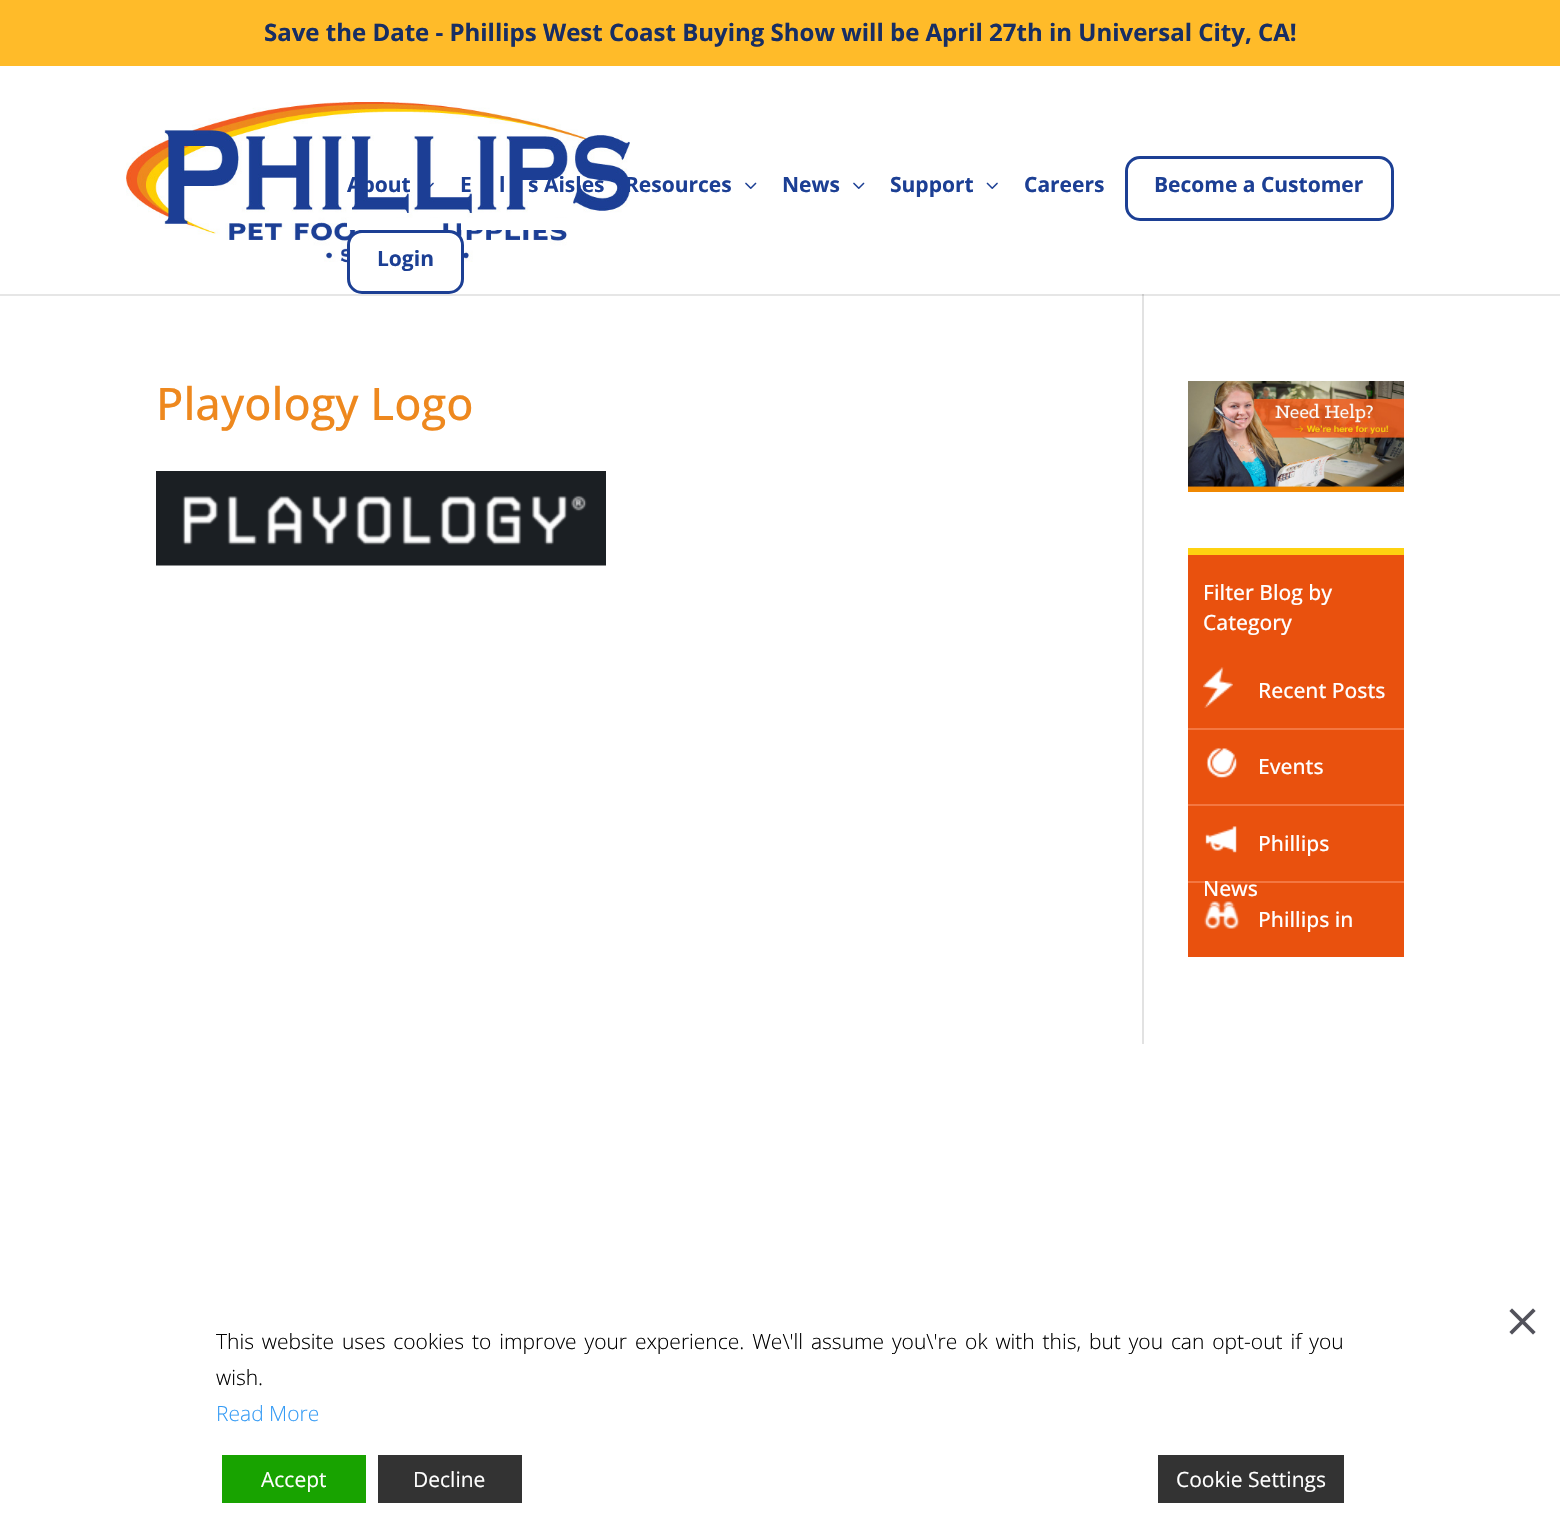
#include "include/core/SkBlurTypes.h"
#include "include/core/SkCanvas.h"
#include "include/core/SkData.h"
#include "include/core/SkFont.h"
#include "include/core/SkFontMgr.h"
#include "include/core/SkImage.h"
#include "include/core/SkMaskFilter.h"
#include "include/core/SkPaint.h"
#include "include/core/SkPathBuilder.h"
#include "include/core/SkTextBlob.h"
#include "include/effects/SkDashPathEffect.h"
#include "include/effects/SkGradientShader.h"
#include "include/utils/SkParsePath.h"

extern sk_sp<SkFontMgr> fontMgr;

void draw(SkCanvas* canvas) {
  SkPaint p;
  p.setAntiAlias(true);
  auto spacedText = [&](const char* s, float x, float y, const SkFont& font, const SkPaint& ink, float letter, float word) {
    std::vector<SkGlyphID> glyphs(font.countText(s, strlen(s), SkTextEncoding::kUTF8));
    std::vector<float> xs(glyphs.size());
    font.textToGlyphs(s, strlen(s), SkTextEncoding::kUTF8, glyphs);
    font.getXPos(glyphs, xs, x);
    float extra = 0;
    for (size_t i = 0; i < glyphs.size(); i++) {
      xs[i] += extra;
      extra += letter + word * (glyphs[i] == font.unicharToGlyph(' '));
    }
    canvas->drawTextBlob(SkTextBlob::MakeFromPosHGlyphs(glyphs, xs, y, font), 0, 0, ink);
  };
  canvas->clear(SK_ColorWHITE);
  p.setColor(SkColorSetRGB(230, 230, 230));
  canvas->drawRect(SkRect::MakeLTRB(0, 294, 1560, 296), p);
  p.setColor(SkColorSetRGB(255, 187, 41));
  canvas->drawRect(SkRect::MakeLTRB(0, 0, 1560, 66), p);
  canvas->drawImageRect(SkImages::DeferredFromEncodedData(SkData::MakeFromFileName("images/1.png")), SkRect::MakeLTRB(126, 102, 630, 263), SkSamplingOptions());
  p.setColor(SK_ColorWHITE);
  canvas->drawRect(SkRect::MakeLTRB(347, 218, 440, 230), p);
  canvas->drawImageRect(SkImages::DeferredFromEncodedData(SkData::MakeFromFileName("images/2.png")), SkRect::MakeLTRB(430, 182, 434, 188), SkSamplingOptions());
  canvas->drawRect(SkRect::MakeLTRB(461, 218, 567, 230), p);
  canvas->drawImageRect(SkImages::DeferredFromEncodedData(SkData::MakeFromFileName("images/3.png")), SkRect::MakeLTRB(745, 182, 757, 189), SkSamplingOptions());
  canvas->drawImageRect(SkImages::DeferredFromEncodedData(SkData::MakeFromFileName("images/3.png")), SkRect::MakeLTRB(853, 182, 865, 189), SkSamplingOptions());
  canvas->drawImageRect(SkImages::DeferredFromEncodedData(SkData::MakeFromFileName("images/4.png")), SkRect::MakeLTRB(986, 182, 998, 189), SkSamplingOptions());
  p.setStyle(SkPaint::kStroke_Style);
  p.setStrokeWidth(3);
  p.setColor(SkColorSetRGB(28, 63, 148));
  canvas->drawRoundRect(SkRect::MakeLTRB(1126.5f, 157.5f, 1392.5f, 219.5f), 13.5f, 13.5f, p);
  p.setStyle(SkPaint::kFill_Style);
  p.setColor(SK_ColorWHITE);
  canvas->drawRoundRect(SkRect::MakeLTRB(348.5f, 231.5f, 462.5f, 292.5f), 13.5f, 13.5f, p);
  p.setStyle(SkPaint::kStroke_Style);
  p.setColor(SkColorSetRGB(28, 63, 148));
  canvas->drawRoundRect(SkRect::MakeLTRB(348.5f, 231.5f, 462.5f, 292.5f), 13.5f, 13.5f, p);
  p.setStyle(SkPaint::kFill_Style);
  p.setColor(SkColorSetRGB(226, 226, 226));
  canvas->drawRect(SkRect::MakeLTRB(1142, 294, 1144, 1044), p);
  p.setColor(SkColorSetRGB(203, 203, 203));
  canvas->drawRect(SkRect::MakeLTRB(1142, 294, 1144, 296), p);
  canvas->drawImageRect(SkImages::DeferredFromEncodedData(SkData::MakeFromFileName("images/5.png")), SkRect::MakeLTRB(156, 471, 606, 566), SkSamplingOptions());
  canvas->drawImageRect(SkImages::DeferredFromEncodedData(SkData::MakeFromFileName("images/6.png")), SkRect::MakeLTRB(1188, 381, 1404, 492), SkSamplingOptions());
  p.setColor(SkColorSetRGB(233, 81, 14));
  canvas->drawRect(SkRect::MakeLTRB(1188, 555, 1404, 957), p);
  p.setColor(SkColorSetRGB(254, 210, 16));
  canvas->drawRect(SkRect::MakeLTRB(1188, 548, 1404, 555), p);
  canvas->drawImageRect(SkImages::DeferredFromEncodedData(SkData::MakeFromFileName("images/7.png")), SkRect::MakeLTRB(1203, 667, 1233, 708), SkSamplingOptions());
  p.setColor(SkColorSetRGB(244, 119, 65));
  canvas->drawRect(SkRect::MakeLTRB(1188, 728, 1404, 730), p);
  canvas->drawImageRect(SkImages::DeferredFromEncodedData(SkData::MakeFromFileName("images/8.png")), SkRect::MakeLTRB(1206, 748, 1238, 779), SkSamplingOptions());
  canvas->drawRect(SkRect::MakeLTRB(1188, 804, 1404, 806), p);
  canvas->drawImageRect(SkImages::DeferredFromEncodedData(SkData::MakeFromFileName("images/9.png")), SkRect::MakeLTRB(1205, 826, 1237, 853), SkSamplingOptions());
  canvas->drawRect(SkRect::MakeLTRB(1188, 881, 1404, 883), p);
  canvas->drawImageRect(SkImages::DeferredFromEncodedData(SkData::MakeFromFileName("images/10.png")), SkRect::MakeLTRB(1204, 901, 1240, 929), SkSamplingOptions());
  canvas->drawImageRect(SkImages::DeferredFromEncodedData(SkData::MakeFromFileName("images/11.png")), SkRect::MakeLTRB(1509, 1308, 1536, 1335), SkSamplingOptions());
  p.setColor(SkColorSetRGB(24, 163, 0));
  canvas->drawRect(SkRect::MakeLTRB(222, 1455, 366, 1503), p);
  p.setColor(SkColorSetRGB(51, 51, 51));
  canvas->drawRect(SkRect::MakeLTRB(378, 1455, 522, 1503), p);
  canvas->drawRect(SkRect::MakeLTRB(1158, 1455, 1344, 1503), p);
  SkFont font1(fontMgr->matchFamilyStyle("Open Sans", SkFontStyle::Bold()), 24);
  font1.setSubpixel(true);
  p.setColor(SkColorSetRGB(24, 46, 99));
  canvas->drawString("Save the Date - Phillips West Coast Buying Show will be April 27th in Universal City, CA!", 264, 41, font1, p);
  SkFont font2(fontMgr->matchFamilyStyle("Open Sans", SkFontStyle::Bold()), 21);
  font2.setSubpixel(true);
  p.setColor(SkColorSetRGB(28, 63, 148));
  canvas->drawString("About", 347, 192, font2, p);
  canvas->drawString("E", 460, 192, font2, p);
  canvas->drawString("l", 499, 192, font2, p);
  canvas->drawString("s Aisles", 528, 192, font2, p);
  canvas->drawString("Resources", 625, 192, font2, p);
  canvas->drawString("News", 782, 192, font2, p);
  canvas->drawString("Support", 890, 192, font2, p);
  canvas->drawString("Careers", 1024, 192, font2, p);
  canvas->drawString("Become a Customer", 1154, 192, font2, p);
  canvas->drawString("Login", 377, 266, font2, p);
  SkFont font3(fontMgr->matchFamilyStyle("Open Sans", SkFontStyle(500, SkFontStyle::kNormal_Width, SkFontStyle::kUpright_Slant)), 45);
  font3.setSubpixel(true);
  p.setColor(SkColorSetRGB(238, 136, 30));
  canvas->drawString("Playology Logo", 156, 420, font3, p);
  SkFont font4(fontMgr->matchFamilyStyle("Open Sans", SkFontStyle(500, SkFontStyle::kNormal_Width, SkFontStyle::kUpright_Slant)), 21);
  font4.setSubpixel(true);
  p.setColor(SK_ColorWHITE);
  canvas->drawString("Filter Blog by", 1203, 600, font4, p);
  canvas->drawString("Category", 1203, 630, font4, p);
  canvas->drawString("Recent Posts", 1258, 698, font4, p);
  canvas->drawString("Events", 1258, 774, font4, p);
  canvas->drawString("Phillips", 1258, 851, font4, p);
  canvas->drawString("News", 1203, 896, font4, p);
  canvas->drawString("Phillips in", 1258, 927, font4, p);
  SkFont font5(fontMgr->matchFamilyStyle("Open Sans", SkFontStyle(300, SkFontStyle::kNormal_Width, SkFontStyle::kUpright_Slant)), 21);
  font5.setSubpixel(true);
  p.setColor(SK_ColorBLACK);
  spacedText("This website uses cookies to improve your experience. We\\'ll assume you\\'re ok with this, but you can opt-out if you", 216, 1349, font5, p, 0, 2.4f);
  canvas->drawString("wish.", 216, 1385, font5, p);
  p.setColor(SkColorSetRGB(53, 155, 245));
  canvas->drawString("Read More", 216, 1421, font5, p);
  SkFont font6(fontMgr->matchFamilyStyle("Open Sans", SkFontStyle::Normal()), 21);
  font6.setSubpixel(true);
  p.setColor(SK_ColorWHITE);
  canvas->drawString("Accept", 261, 1487, font6, p);
  canvas->drawString("Decline", 413, 1487, font6, p);
  canvas->drawString("Cookie Settings", 1176, 1487, font6, p);
}
